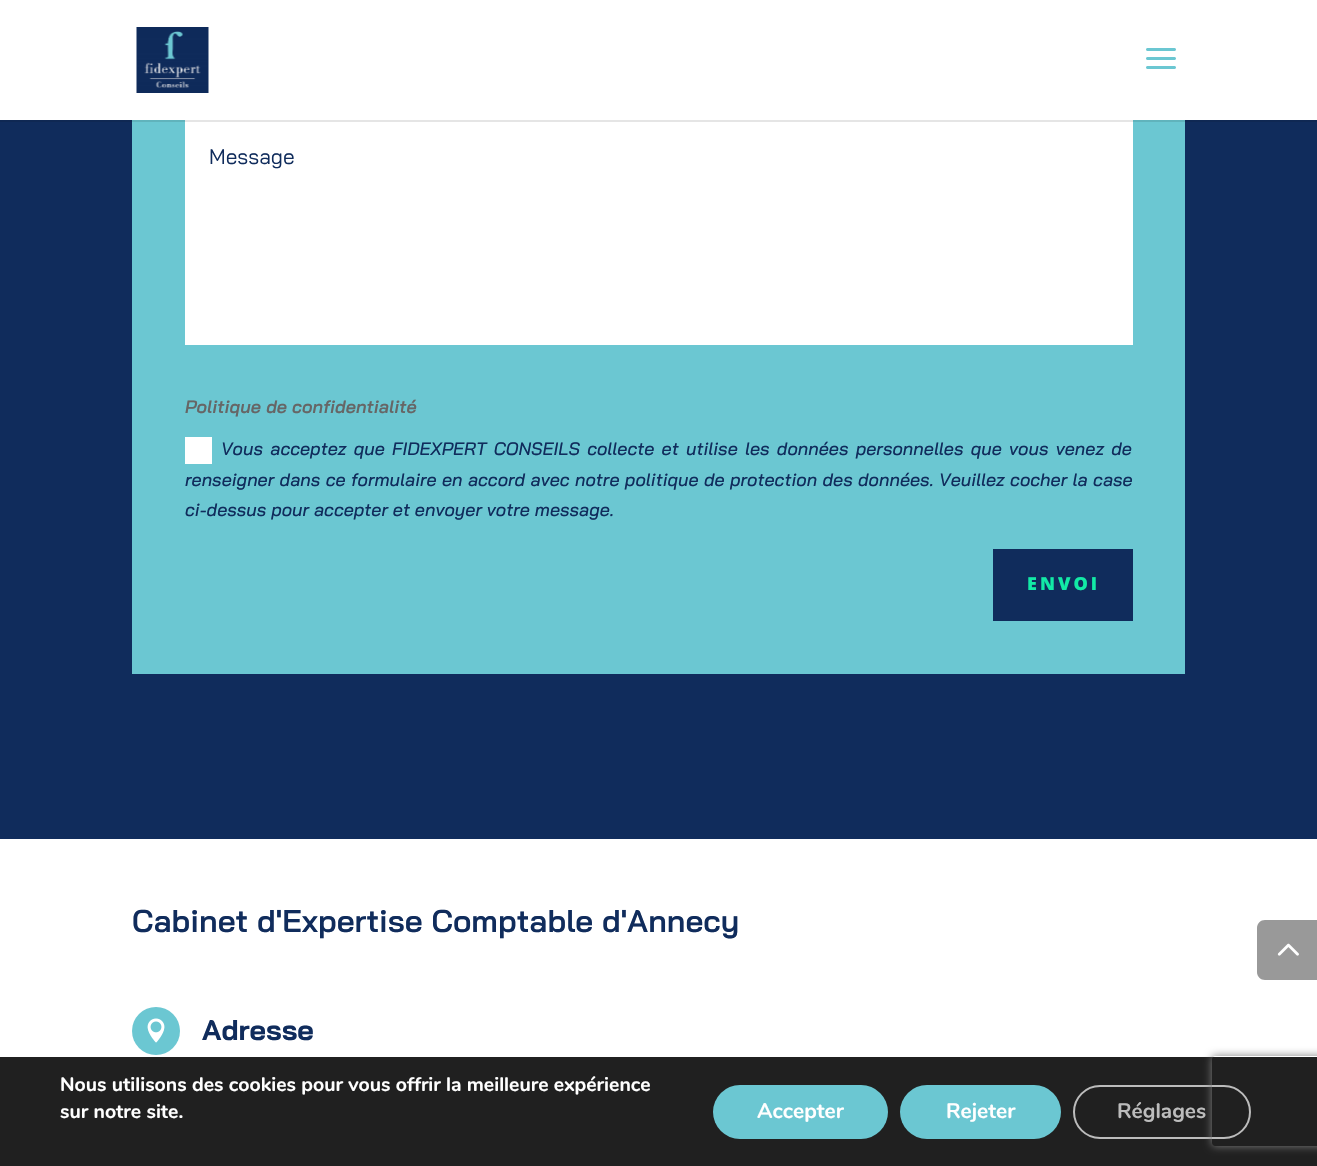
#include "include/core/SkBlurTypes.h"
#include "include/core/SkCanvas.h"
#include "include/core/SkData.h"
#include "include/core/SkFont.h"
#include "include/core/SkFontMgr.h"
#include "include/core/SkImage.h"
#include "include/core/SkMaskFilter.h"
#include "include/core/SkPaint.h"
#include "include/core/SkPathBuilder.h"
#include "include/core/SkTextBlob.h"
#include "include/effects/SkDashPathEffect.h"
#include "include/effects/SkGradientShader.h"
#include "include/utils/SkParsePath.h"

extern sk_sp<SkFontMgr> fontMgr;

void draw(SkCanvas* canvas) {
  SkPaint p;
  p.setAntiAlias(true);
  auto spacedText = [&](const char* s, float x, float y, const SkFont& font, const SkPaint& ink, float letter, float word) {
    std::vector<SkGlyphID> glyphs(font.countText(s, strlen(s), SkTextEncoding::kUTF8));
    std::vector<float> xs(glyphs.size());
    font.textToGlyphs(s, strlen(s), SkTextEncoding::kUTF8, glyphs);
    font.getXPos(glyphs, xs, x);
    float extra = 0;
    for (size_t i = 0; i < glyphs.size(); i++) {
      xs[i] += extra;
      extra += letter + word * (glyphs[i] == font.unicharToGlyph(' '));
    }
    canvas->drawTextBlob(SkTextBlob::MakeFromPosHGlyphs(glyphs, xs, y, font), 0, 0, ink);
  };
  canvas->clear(SkColorSetRGB(16, 44, 92));
  p.setColor(SkColorSetRGB(107, 199, 210));
  canvas->drawRect(SkRect::MakeLTRB(132, 120, 1185, 674), p);
  p.setColor(SK_ColorWHITE);
  canvas->drawRect(SkRect::MakeLTRB(185, 120, 1133, 345), p);
  p.setColor(SkColorSetARGB(26, 0, 0, 0));
  canvas->drawRect(SkRect::MakeLTRB(0, 120, 1317, 122), p);
  p.setColor(SK_ColorWHITE);
  canvas->drawRect(SkRect::MakeLTRB(0, 0, 1317, 120), p);
  canvas->drawImageRect(SkImages::DeferredFromEncodedData(SkData::MakeFromFileName("images/1.png")), SkRect::MakeLTRB(136, 27, 209, 93), SkSamplingOptions());
  canvas->drawImageRect(SkImages::DeferredFromEncodedData(SkData::MakeFromFileName("images/2.png")), SkRect::MakeLTRB(1146, 48, 1176, 69), SkSamplingOptions());
  canvas->drawRect(SkRect::MakeLTRB(185, 437, 212, 464), p);
  p.setColor(SkColorSetRGB(16, 44, 92));
  canvas->drawRect(SkRect::MakeLTRB(993, 549, 1133, 621), p);
  p.setColor(SK_ColorWHITE);
  canvas->drawRect(SkRect::MakeLTRB(0, 839, 1317, 1057), p);
  p.setColor(SkColorSetRGB(107, 199, 210));
  canvas->drawCircle(156, 1031, 24, p);
  canvas->drawImageRect(SkImages::DeferredFromEncodedData(SkData::MakeFromFileName("images/3.png")), SkRect::MakeLTRB(147, 1018, 165, 1043), SkSamplingOptions());
  p.setColor(SkColorSetRGB(153, 153, 153));
  canvas->drawPath(SkPathBuilder().moveTo(1265, 920).lineTo(1317, 920).lineTo(1317, 980).lineTo(1265, 980).cubicTo(1260.5f, 980, 1257, 976.5f, 1257, 972).lineTo(1257, 928).cubicTo(1257, 923.5f, 1260.5f, 920, 1265, 920).close().detach(), p);
  canvas->drawImageRect(SkImages::DeferredFromEncodedData(SkData::MakeFromFileName("images/4.png")), SkRect::MakeLTRB(1277, 943, 1299, 956), SkSamplingOptions());
  p.setColor(SkColorSetRGB(32, 32, 32));
  canvas->drawRect(SkRect::MakeLTRB(0, 1057, 1317, 1166), p);
  p.setColor(SkColorSetRGB(107, 199, 210));
  canvas->drawRoundRect(SkRect::MakeLTRB(713, 1085, 888, 1139), 27, 27, p);
  canvas->drawRoundRect(SkRect::MakeLTRB(900, 1085, 1061, 1139), 27, 27, p);
  p.setStyle(SkPaint::kStroke_Style);
  p.setStrokeWidth(2);
  p.setColor(SkColorSetRGB(188, 188, 188));
  canvas->drawRoundRect(SkRect::MakeLTRB(1074, 1086, 1250, 1138), 26, 26, p);
  canvas->save();
  canvas->clipPath(SkPathBuilder(SkPathFillType::kEvenOdd).moveTo(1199, 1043).lineTo(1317, 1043).lineTo(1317, 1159).lineTo(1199, 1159).close().moveTo(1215, 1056).lineTo(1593, 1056).cubicTo(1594.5f, 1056, 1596, 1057.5f, 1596, 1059).lineTo(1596, 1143).cubicTo(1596, 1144.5f, 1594.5f, 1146, 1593, 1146).lineTo(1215, 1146).cubicTo(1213.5f, 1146, 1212, 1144.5f, 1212, 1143).lineTo(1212, 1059).cubicTo(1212, 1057.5f, 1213.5f, 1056, 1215, 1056).close().detach(), true);
  p.setStyle(SkPaint::kFill_Style);
  p.setColor(SkColorSetRGB(128, 128, 128));
  p.setMaskFilter(SkMaskFilter::MakeBlur(kNormal_SkBlurStyle, 4));
  canvas->drawRoundRect(SkRect::MakeLTRB(1212, 1056, 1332, 1146), 3, 3, p);
  p.setMaskFilter(nullptr);
  canvas->restore();
  SkFont font1(fontMgr->matchFamilyStyle("Bai Jamjuree", SkFontStyle::Normal()), 21);
  font1.setSubpixel(true);
  p.setColor(SkColorSetRGB(16, 44, 92));
  canvas->drawString("Message", 209, 164, font1, p);
  SkFont font2(fontMgr->matchFamilyStyle("Bai Jamjuree", SkFontStyle(600, SkFontStyle::kNormal_Width, SkFontStyle::kItalic_Slant)), 18);
  font2.setSubpixel(true);
  p.setColor(SkColorSetRGB(102, 102, 102));
  canvas->drawString("Politique de confidentialité", 185, 413, font2, p);
  SkFont font3(fontMgr->matchFamilyStyle("Bai Jamjuree", SkFontStyle(500, SkFontStyle::kNormal_Width, SkFontStyle::kItalic_Slant)), 18);
  font3.setSubpixel(true);
  p.setColor(SkColorSetRGB(16, 44, 92));
  spacedText("Vous acceptez que FIDEXPERT CONSEILS collecte et utilise les données personnelles que vous venez de", 221, 455, font3, p, 0, 2.4f);
  spacedText("renseigner dans ce formulaire en accord avec notre politique de protection des données. Veuillez cocher la case", 185, 486, font3, p, 0, 0.5f);
  canvas->drawString("ci-dessus pour accepter et envoyer votre message.", 185, 516, font3, p);
  SkFont font4(fontMgr->matchFamilyStyle("Open Sans", SkFontStyle(800, SkFontStyle::kNormal_Width, SkFontStyle::kUpright_Slant)), 18);
  font4.setSubpixel(true);
  p.setColor(SkColorSetRGB(18, 234, 166));
  spacedText("ENVOI", 1027, 590, font4, p, 3, 0);
  SkFont font5(fontMgr->matchFamilyStyle("Bai Jamjuree", SkFontStyle(600, SkFontStyle::kNormal_Width, SkFontStyle::kUpright_Slant)), 31.5f);
  font5.setSubpixel(true);
  p.setColor(SkColorSetRGB(16, 44, 92));
  canvas->drawString("Cabinet d'Expertise Comptable d'Annecy", 132, 932, font5, p);
  SkFont font6(fontMgr->matchFamilyStyle("Bai Jamjuree", SkFontStyle::Bold()), 28.5f);
  font6.setSubpixel(true);
  canvas->drawString("Adresse", 202, 1040, font6, p);
  SkFont font7(fontMgr->matchFamilyStyle("Nunito", SkFontStyle::Bold()), 19.5f);
  font7.setSubpixel(true);
  p.setColor(SK_ColorWHITE);
  canvas->drawString("Nous utilisons des cookies pour vous offrir la meilleure expérience", 60, 1091, font7, p);
  canvas->drawString("sur notre site.", 60, 1118, font7, p);
  SkFont font8(fontMgr->matchFamilyStyle("Nunito", SkFontStyle::Bold()), 21);
  font8.setSubpixel(true);
  canvas->drawString("Accepter", 757, 1118, font8, p);
  canvas->drawString("Rejeter", 946, 1118, font8, p);
  p.setColor(SkColorSetRGB(188, 188, 188));
  canvas->drawString("Réglages", 1117, 1118, font8, p);
}
